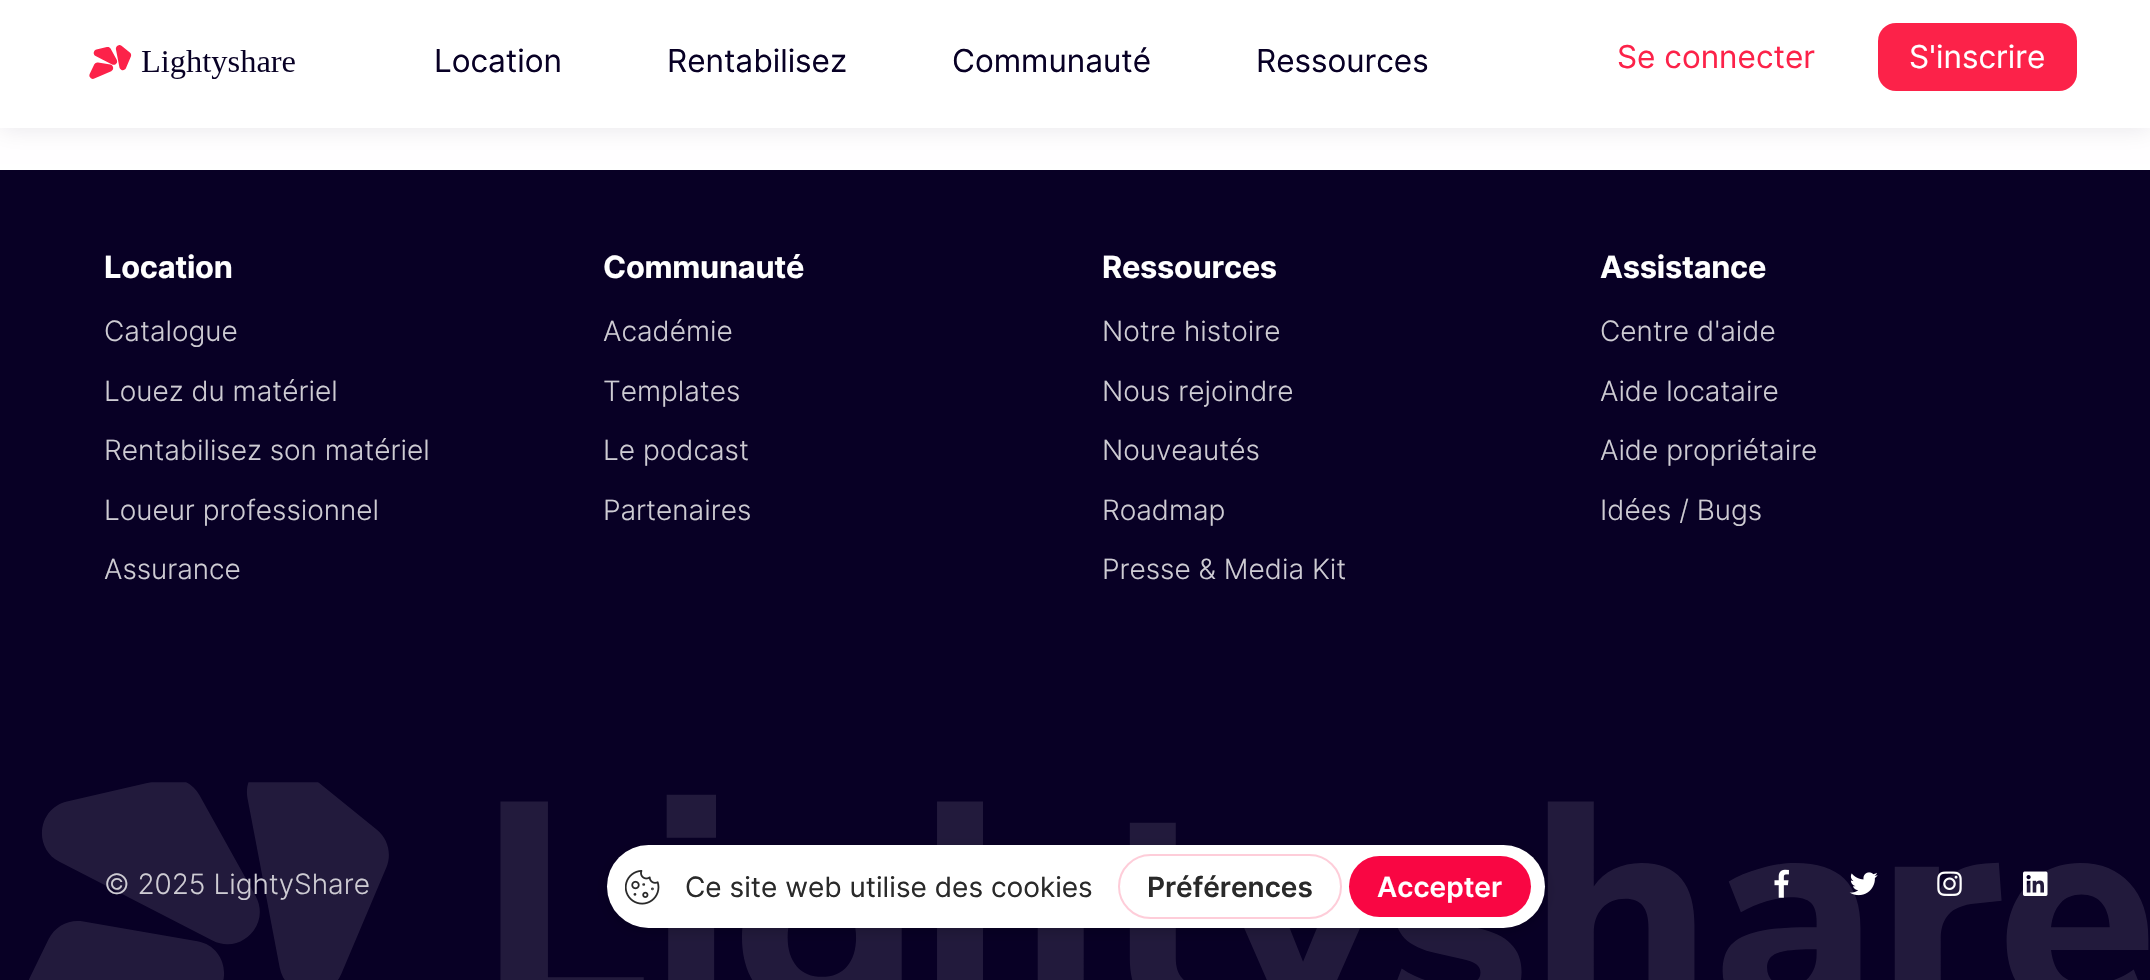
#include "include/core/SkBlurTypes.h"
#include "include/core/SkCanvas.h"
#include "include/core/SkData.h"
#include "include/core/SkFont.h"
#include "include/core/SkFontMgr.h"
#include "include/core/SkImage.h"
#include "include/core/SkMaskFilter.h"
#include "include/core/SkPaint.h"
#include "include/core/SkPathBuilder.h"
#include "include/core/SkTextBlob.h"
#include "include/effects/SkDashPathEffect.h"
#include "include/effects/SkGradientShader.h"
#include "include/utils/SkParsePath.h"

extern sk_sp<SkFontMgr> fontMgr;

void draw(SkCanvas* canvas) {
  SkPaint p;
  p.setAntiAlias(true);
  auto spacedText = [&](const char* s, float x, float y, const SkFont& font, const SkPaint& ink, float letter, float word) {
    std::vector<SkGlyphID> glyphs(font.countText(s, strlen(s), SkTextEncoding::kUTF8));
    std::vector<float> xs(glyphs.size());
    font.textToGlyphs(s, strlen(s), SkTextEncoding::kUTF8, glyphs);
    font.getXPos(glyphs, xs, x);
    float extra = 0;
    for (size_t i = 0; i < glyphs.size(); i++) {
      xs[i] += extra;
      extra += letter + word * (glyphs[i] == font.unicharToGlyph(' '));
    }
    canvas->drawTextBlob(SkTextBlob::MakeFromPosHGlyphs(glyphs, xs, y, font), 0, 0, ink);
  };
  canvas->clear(SK_ColorWHITE);
  p.setColor(SkColorSetARGB(26, 8, 0, 37));
  p.setMaskFilter(SkMaskFilter::MakeBlur(kNormal_SkBlurStyle, 12));
  canvas->drawRect(SkRect::MakeLTRB(0, 0, 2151, 128), p);
  p.setMaskFilter(nullptr);
  p.setColor(SK_ColorWHITE);
  canvas->drawRect(SkRect::MakeLTRB(0, 0, 2150, 128), p);
  canvas->drawImageRect(SkImages::DeferredFromEncodedData(SkData::MakeFromFileName("images/1.png")), SkRect::MakeLTRB(89, 45, 295, 79), SkSamplingOptions());
  p.setColor(SkColorSetRGB(252, 34, 73));
  canvas->drawRoundRect(SkRect::MakeLTRB(1878, 23, 2077, 91), 18, 18, p);
  p.setColor(SkColorSetRGB(8, 0, 37));
  canvas->drawRect(SkRect::MakeLTRB(0, 170, 2150, 980), p);
  canvas->drawImageRect(SkImages::DeferredFromEncodedData(SkData::MakeFromFileName("images/2.png")), SkRect::MakeLTRB(29, 782, 2149, 980), SkSamplingOptions());
  canvas->drawImageRect(SkImages::DeferredFromEncodedData(SkData::MakeFromFileName("images/3.png")), SkRect::MakeLTRB(1774, 869, 1789, 898), SkSamplingOptions());
  canvas->drawImageRect(SkImages::DeferredFromEncodedData(SkData::MakeFromFileName("images/4.png")), SkRect::MakeLTRB(1849, 872, 1878, 896), SkSamplingOptions());
  canvas->drawImageRect(SkImages::DeferredFromEncodedData(SkData::MakeFromFileName("images/5.png")), SkRect::MakeLTRB(1937, 871, 1962, 896), SkSamplingOptions());
  canvas->drawImageRect(SkImages::DeferredFromEncodedData(SkData::MakeFromFileName("images/6.png")), SkRect::MakeLTRB(2023, 871, 2048, 896), SkSamplingOptions());
  p.setColor(SkColorSetARGB(51, 0, 0, 0));
  p.setMaskFilter(SkMaskFilter::MakeBlur(kNormal_SkBlurStyle, 7));
  canvas->drawRoundRect(SkRect::MakeLTRB(607, 849, 1545, 931), 41, 41, p);
  p.setMaskFilter(nullptr);
  p.setColor(SK_ColorWHITE);
  canvas->drawRoundRect(SkRect::MakeLTRB(607, 845, 1545, 928), 41.5f, 41.5f, p);
  canvas->drawImageRect(SkImages::DeferredFromEncodedData(SkData::MakeFromFileName("images/7.png")), SkRect::MakeLTRB(625, 870, 660, 905), SkSamplingOptions());
  p.setStyle(SkPaint::kStroke_Style);
  p.setStrokeWidth(2);
  p.setColor(SkColorSetRGB(254, 205, 217));
  canvas->drawRoundRect(SkRect::MakeLTRB(1119, 855, 1341, 918), 31.5f, 31.5f, p);
  p.setStyle(SkPaint::kFill_Style);
  p.setColor(SkColorSetRGB(249, 6, 67));
  canvas->drawRoundRect(SkRect::MakeLTRB(1349, 856, 1531, 917), 30.5f, 30.5f, p);
  SkFont font1(fontMgr->matchFamilyStyle("Inter", SkFontStyle::Normal()), 31.5f);
  font1.setSubpixel(true);
  p.setColor(SkColorSetRGB(8, 0, 37));
  canvas->drawString("Location", 434, 72, font1, p);
  canvas->drawString("Rentabilisez", 667, 72, font1, p);
  canvas->drawString("Communauté", 952, 72, font1, p);
  canvas->drawString("Ressources", 1256, 72, font1, p);
  p.setColor(SkColorSetRGB(252, 34, 73));
  canvas->drawString("Se connecter", 1617, 68, font1, p);
  p.setColor(SK_ColorWHITE);
  canvas->drawString("S'inscrire", 1909, 68, font1, p);
  SkFont font2(fontMgr->matchFamilyStyle("Inter", SkFontStyle::Bold()), 30.75f);
  font2.setSubpixel(true);
  spacedText("Location", 104, 278, font2, p, -0.25f, 0);
  SkFont font3(fontMgr->matchFamilyStyle("Inter", SkFontStyle(300, SkFontStyle::kNormal_Width, SkFontStyle::kUpright_Slant)), 28);
  font3.setSubpixel(true);
  p.setColor(SkColorSetRGB(206, 204, 211));
  canvas->drawString("Catalogue", 104, 341, font3, p);
  canvas->drawString("Louez du matériel", 104, 401, font3, p);
  canvas->drawString("Rentabilisez son matériel", 104, 460, font3, p);
  canvas->drawString("Loueur professionnel", 104, 520, font3, p);
  canvas->drawString("Assurance", 104, 579, font3, p);
  p.setColor(SK_ColorWHITE);
  spacedText("Communauté", 603, 278, font2, p, -0.25f, 0);
  p.setColor(SkColorSetRGB(206, 204, 211));
  canvas->drawString("Académie", 603, 341, font3, p);
  canvas->drawString("Templates", 603, 401, font3, p);
  canvas->drawString("Le podcast", 603, 460, font3, p);
  canvas->drawString("Partenaires", 603, 520, font3, p);
  p.setColor(SK_ColorWHITE);
  spacedText("Ressources", 1102, 278, font2, p, -0.25f, 0);
  p.setColor(SkColorSetRGB(206, 204, 211));
  canvas->drawString("Notre histoire", 1102, 341, font3, p);
  canvas->drawString("Nous rejoindre", 1102, 401, font3, p);
  canvas->drawString("Nouveautés", 1102, 460, font3, p);
  canvas->drawString("Roadmap", 1102, 520, font3, p);
  canvas->drawString("Presse & Media Kit", 1102, 579, font3, p);
  p.setColor(SK_ColorWHITE);
  spacedText("Assistance", 1600, 278, font2, p, -0.25f, 0);
  p.setColor(SkColorSetRGB(206, 204, 211));
  canvas->drawString("Centre d'aide", 1600, 341, font3, p);
  canvas->drawString("Aide locataire", 1600, 401, font3, p);
  canvas->drawString("Aide propriétaire", 1600, 460, font3, p);
  canvas->drawString("Idées / Bugs", 1600, 520, font3, p);
  canvas->drawString("© 2025 LightyShare", 104, 894, font3, p);
  SkFont font4(fontMgr->matchFamilyStyle("Inter", SkFontStyle::Normal()), 28);
  font4.setSubpixel(true);
  p.setColor(SkColorSetRGB(42, 42, 42));
  canvas->drawString("Ce site web utilise des cookies", 685, 897, font4, p);
  SkFont font5(fontMgr->matchFamilyStyle("Inter", SkFontStyle(600, SkFontStyle::kNormal_Width, SkFontStyle::kUpright_Slant)), 28);
  font5.setSubpixel(true);
  canvas->drawString("Préférences", 1147, 897, font5, p);
  p.setColor(SK_ColorWHITE);
  canvas->drawString("Accepter", 1377, 897, font5, p);
}
